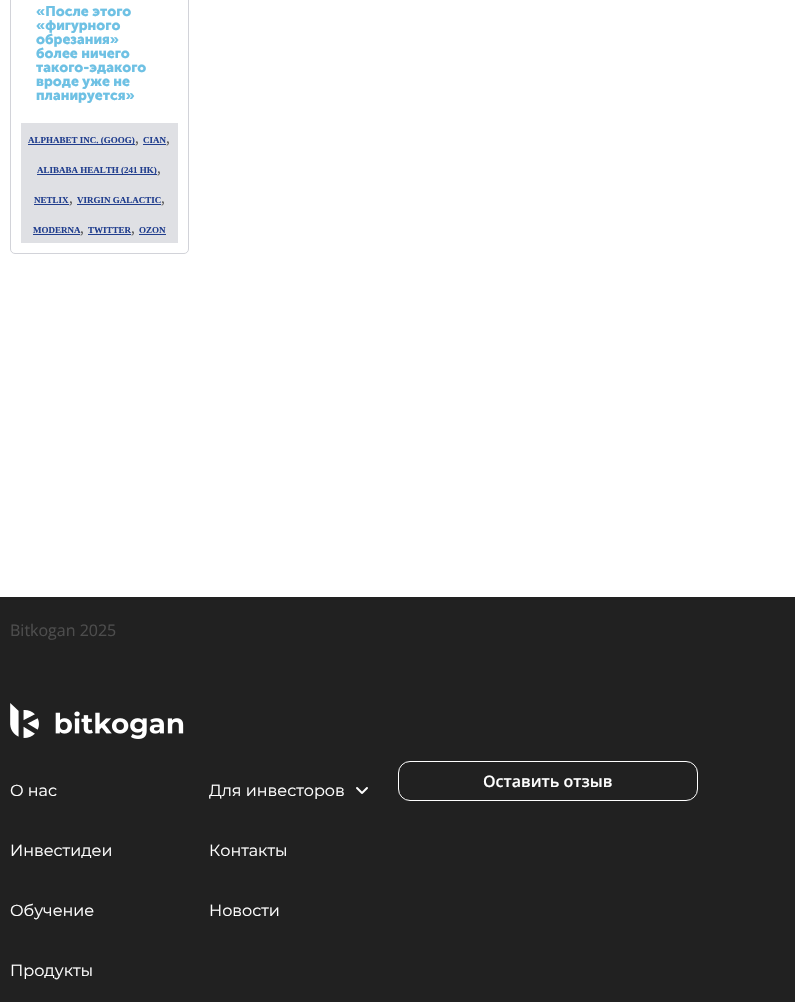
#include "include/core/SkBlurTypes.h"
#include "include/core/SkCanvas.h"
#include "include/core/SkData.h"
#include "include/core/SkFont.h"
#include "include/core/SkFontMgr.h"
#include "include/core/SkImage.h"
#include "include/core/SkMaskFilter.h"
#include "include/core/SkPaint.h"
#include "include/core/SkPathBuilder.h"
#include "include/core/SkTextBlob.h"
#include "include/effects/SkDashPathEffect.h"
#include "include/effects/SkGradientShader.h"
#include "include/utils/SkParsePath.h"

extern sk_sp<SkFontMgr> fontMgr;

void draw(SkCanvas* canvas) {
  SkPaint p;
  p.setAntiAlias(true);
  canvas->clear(SK_ColorWHITE);
  p.setStyle(SkPaint::kStroke_Style);
  p.setStrokeWidth(1);
  p.setColor(SkColorSetRGB(210, 211, 217));
  canvas->drawRoundRect(SkRect::MakeLTRB(10.5f, -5.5f, 188.5f, 253.5f), 4.5f, 4.5f, p);
  p.setStyle(SkPaint::kFill_Style);
  p.setColor(SkColorSetRGB(223, 224, 228));
  canvas->drawRect(SkRect::MakeLTRB(21, 123, 178, 243), p);
  p.setColor(SkColorSetRGB(33, 62, 142));
  canvas->drawRect(SkRect::MakeLTRB(28, 144, 135, 145), p);
  canvas->drawRect(SkRect::MakeLTRB(143, 144, 166, 145), p);
  canvas->drawRect(SkRect::MakeLTRB(37, 174, 157, 175), p);
  canvas->drawRect(SkRect::MakeLTRB(34, 204, 69, 205), p);
  canvas->drawRect(SkRect::MakeLTRB(77, 204, 161, 205), p);
  canvas->drawRect(SkRect::MakeLTRB(33, 234, 80, 235), p);
  canvas->drawRect(SkRect::MakeLTRB(88, 234, 131, 235), p);
  canvas->drawRect(SkRect::MakeLTRB(139, 234, 166, 235), p);
  p.setColor(SkColorSetRGB(33, 33, 33));
  canvas->drawRect(SkRect::MakeLTRB(0, 597, 795, 1002), p);
  canvas->drawImageRect(SkImages::DeferredFromEncodedData(SkData::MakeFromFileName("images/1.png")), SkRect::MakeLTRB(10, 703, 184, 739), SkSamplingOptions());
  p.setStyle(SkPaint::kStroke_Style);
  p.setColor(SK_ColorWHITE);
  canvas->drawRoundRect(SkRect::MakeLTRB(398.5f, 761.5f, 697.5f, 800.5f), 11.5f, 11.5f, p);
  canvas->drawImageRect(SkImages::DeferredFromEncodedData(SkData::MakeFromFileName("images/2.png")), SkRect::MakeLTRB(356, 787, 368, 794), SkSamplingOptions());
  SkFont font1(fontMgr->matchFamilyStyle("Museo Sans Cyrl", SkFontStyle::Bold()), 14);
  font1.setSubpixel(true);
  p.setStyle(SkPaint::kFill_Style);
  p.setColor(SkColorSetRGB(110, 193, 228));
  canvas->drawString("«После этого", 36, 16, font1, p);
  canvas->drawString("«фигурного", 36, 30, font1, p);
  canvas->drawString("обрезания»", 36, 44, font1, p);
  canvas->drawString("более ничего", 36, 58, font1, p);
  canvas->drawString("такого-эдакого", 36, 72, font1, p);
  canvas->drawString("вроде уже не", 36, 86, font1, p);
  canvas->drawString("планируется»", 36, 100, font1, p);
  SkFont font2(fontMgr->matchFamilyStyle("Liberation Serif", SkFontStyle::Bold()), 9);
  font2.setSubpixel(true);
  p.setColor(SkColorSetRGB(33, 62, 142));
  canvas->drawString("ALPHABET INC. (GOOG)", 28, 143, font2, p);
  SkFont font3(fontMgr->matchFamilyStyle("Liberation Serif", SkFontStyle::Normal()), 16);
  font3.setSubpixel(true);
  p.setColor(SkColorSetRGB(97, 97, 97));
  canvas->drawString(",", 135, 143, font3, p);
  p.setColor(SkColorSetRGB(33, 62, 142));
  canvas->drawString("CIAN", 143, 143, font2, p);
  p.setColor(SkColorSetRGB(97, 97, 97));
  canvas->drawString(",", 166, 143, font3, p);
  p.setColor(SkColorSetRGB(33, 62, 142));
  canvas->drawString("ALIBABA HEALTH (241 HK)", 37, 173, font2, p);
  p.setColor(SkColorSetRGB(97, 97, 97));
  canvas->drawString(",", 157, 173, font3, p);
  p.setColor(SkColorSetRGB(33, 62, 142));
  canvas->drawString("NETLIX", 34, 203, font2, p);
  p.setColor(SkColorSetRGB(97, 97, 97));
  canvas->drawString(",", 69, 203, font3, p);
  p.setColor(SkColorSetRGB(33, 62, 142));
  canvas->drawString("VIRGIN GALACTIC", 77, 203, font2, p);
  p.setColor(SkColorSetRGB(97, 97, 97));
  canvas->drawString(",", 161, 203, font3, p);
  p.setColor(SkColorSetRGB(33, 62, 142));
  canvas->drawString("MODERNA", 33, 233, font2, p);
  p.setColor(SkColorSetRGB(97, 97, 97));
  canvas->drawString(",", 80, 233, font3, p);
  p.setColor(SkColorSetRGB(33, 62, 142));
  canvas->drawString("TWITTER", 88, 233, font2, p);
  p.setColor(SkColorSetRGB(97, 97, 97));
  canvas->drawString(",", 131, 233, font3, p);
  p.setColor(SkColorSetRGB(33, 62, 142));
  canvas->drawString("OZON", 139, 233, font2, p);
  SkFont font4(fontMgr->matchFamilyStyle("Open Sans", SkFontStyle::Normal()), 16);
  font4.setSubpixel(true);
  p.setColor(SkColorSetRGB(77, 77, 77));
  canvas->drawString("Bitkogan 2025", 10, 636, font4, p);
  SkFont font5(fontMgr->matchFamilyStyle("Open Sans", SkFontStyle(600, SkFontStyle::kNormal_Width, SkFontStyle::kUpright_Slant)), 16);
  font5.setSubpixel(true);
  p.setColor(SK_ColorWHITE);
  canvas->drawString("Оставить отзыв", 483, 787, font5, p);
  SkFont font6(fontMgr->matchFamilyStyle("Montserrat", SkFontStyle::Normal()), 16);
  font6.setSubpixel(true);
  canvas->drawString("О нас", 10, 796, font6, p);
  canvas->drawString("Для инвесторов", 209, 796, font6, p);
  canvas->drawString("Инвестидеи", 10, 856, font6, p);
  canvas->drawString("Контакты", 209, 856, font6, p);
  canvas->drawString("Обучение", 10, 916, font6, p);
  canvas->drawString("Новости", 209, 916, font6, p);
  canvas->drawString("Продукты", 10, 976, font6, p);
}
